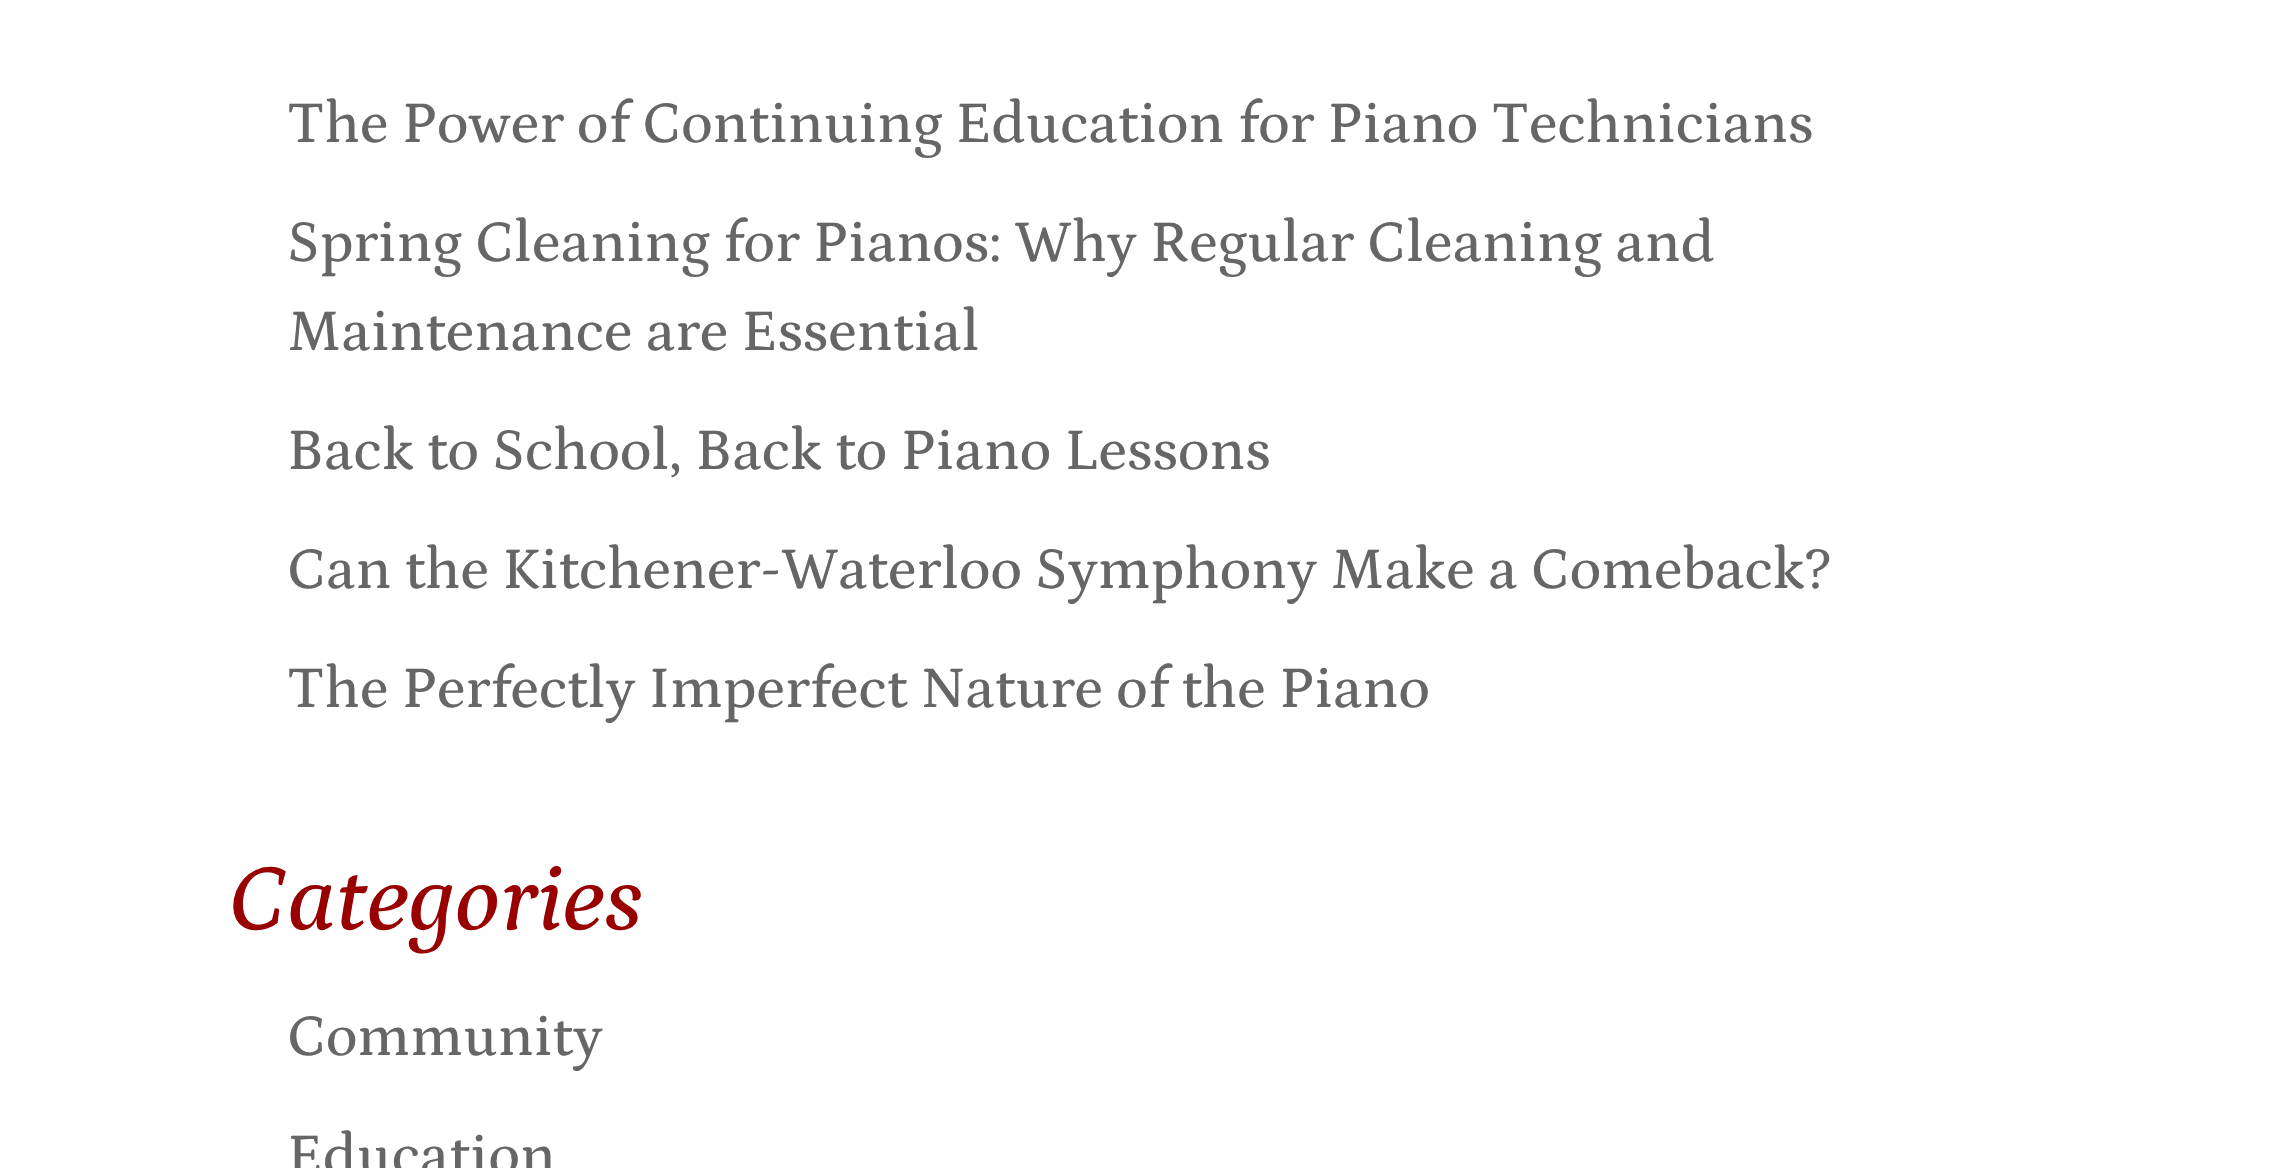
#include "include/core/SkBlurTypes.h"
#include "include/core/SkCanvas.h"
#include "include/core/SkData.h"
#include "include/core/SkFont.h"
#include "include/core/SkFontMgr.h"
#include "include/core/SkImage.h"
#include "include/core/SkMaskFilter.h"
#include "include/core/SkPaint.h"
#include "include/core/SkPathBuilder.h"
#include "include/core/SkTextBlob.h"
#include "include/effects/SkDashPathEffect.h"
#include "include/effects/SkGradientShader.h"
#include "include/utils/SkParsePath.h"

extern sk_sp<SkFontMgr> fontMgr;

void draw(SkCanvas* canvas) {
  SkPaint p;
  p.setAntiAlias(true);
  canvas->clear(SK_ColorWHITE);
  SkFont font1(fontMgr->matchFamilyStyle("Petrona", SkFontStyle(500, SkFontStyle::kNormal_Width, SkFontStyle::kUpright_Slant)), 59.5f);
  font1.setSubpixel(true);
  p.setColor(SkColorSetRGB(102, 102, 102));
  canvas->drawString("The Power of Continuing Education for Piano Technicians", 287, 142, font1, p);
  canvas->drawString("Spring Cleaning for Pianos: Why Regular Cleaning and", 287, 261, font1, p);
  canvas->drawString("Maintenance are Essential", 287, 350, font1, p);
  canvas->drawString("Back to School, Back to Piano Lessons", 287, 469, font1, p);
  canvas->drawString("Can the Kitchener-Waterloo Symphony Make a Comeback?", 287, 588, font1, p);
  canvas->drawString("The Perfectly Imperfect Nature of the Piano", 287, 707, font1, p);
  SkFont font2(fontMgr->matchFamilyStyle("Petrona", SkFontStyle(500, SkFontStyle::kNormal_Width, SkFontStyle::kItalic_Slant)), 95);
  font2.setSubpixel(true);
  p.setColor(SkColorSetRGB(153, 0, 0));
  canvas->drawString("Categories", 228, 929, font2, p);
  p.setColor(SkColorSetRGB(102, 102, 102));
  canvas->drawString("Community", 287, 1055, font1, p);
  canvas->drawString("Education", 287, 1174, font1, p);
}
